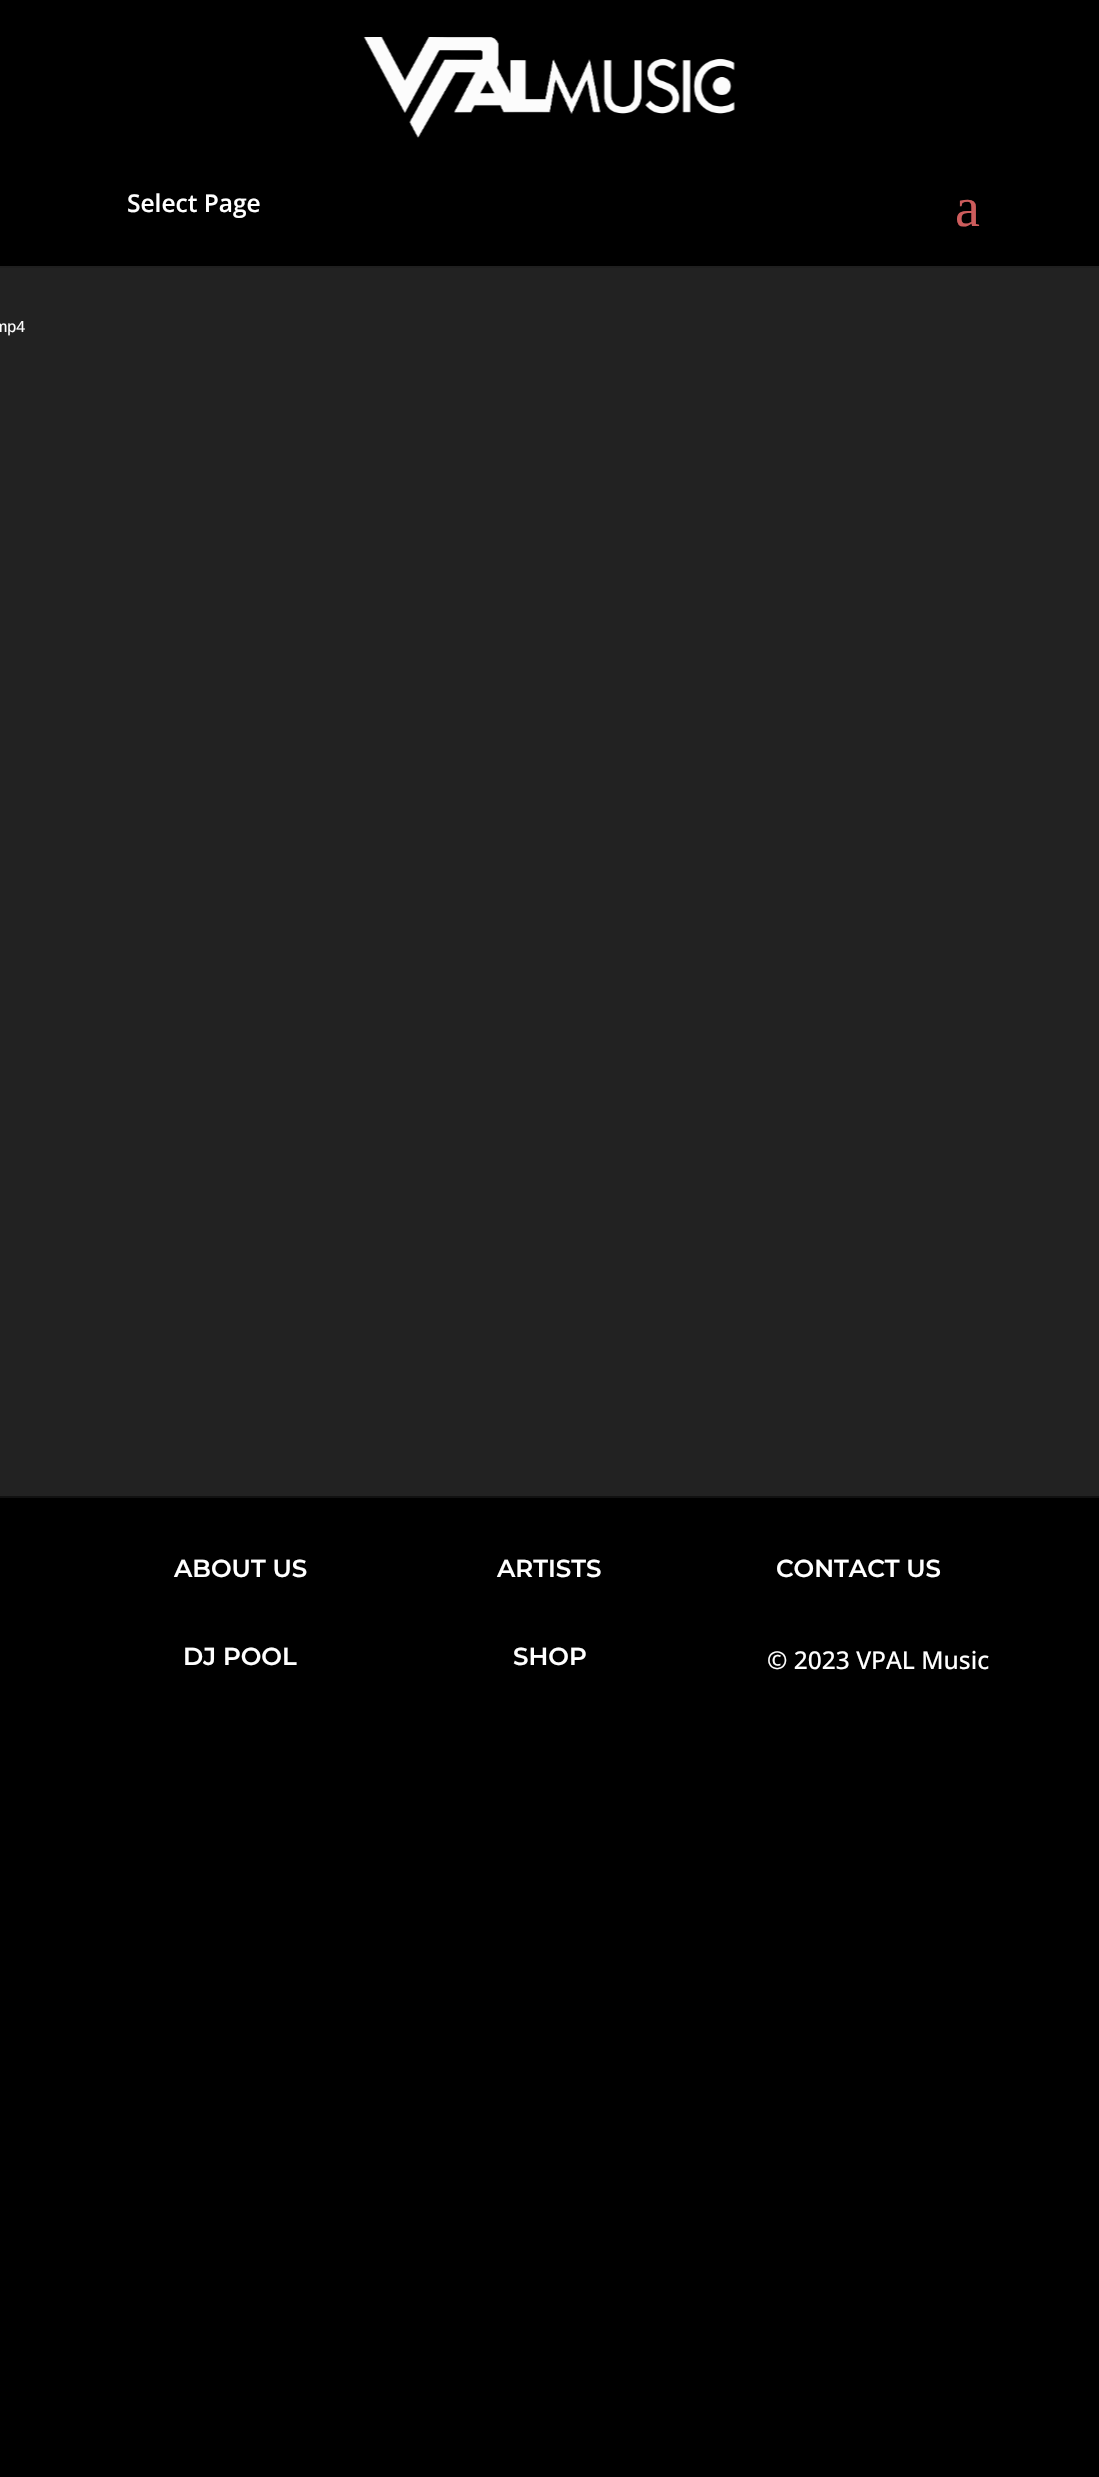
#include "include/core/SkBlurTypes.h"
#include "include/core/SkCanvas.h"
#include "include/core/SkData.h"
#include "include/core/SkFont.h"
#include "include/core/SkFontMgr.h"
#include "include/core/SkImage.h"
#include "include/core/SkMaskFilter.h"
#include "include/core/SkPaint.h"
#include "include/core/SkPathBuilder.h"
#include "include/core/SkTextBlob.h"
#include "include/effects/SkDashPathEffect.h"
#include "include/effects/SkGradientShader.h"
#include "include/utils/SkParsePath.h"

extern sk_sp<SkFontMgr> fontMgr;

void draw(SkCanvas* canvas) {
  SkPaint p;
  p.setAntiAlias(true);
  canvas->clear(SK_ColorBLACK);
  p.setColor(SkColorSetRGB(31, 31, 31));
  canvas->drawRect(SkRect::MakeLTRB(0, 266, 1099, 268), p);
  canvas->drawImageRect(SkImages::DeferredFromEncodedData(SkData::MakeFromFileName("images/1.png")), SkRect::MakeLTRB(363, 37, 735, 138), SkSamplingOptions());
  p.setColor(SkColorSetRGB(34, 34, 34));
  canvas->drawRect(SkRect::MakeLTRB(0, 268, 1099, 1496), p);
  p.setColor(SkColorSetRGB(17, 17, 17));
  canvas->drawRect(SkRect::MakeLTRB(0, 1496, 1099, 1498), p);
  SkFont font1(fontMgr->matchFamilyStyle("Open Sans", SkFontStyle(600, SkFontStyle::kNormal_Width, SkFontStyle::kUpright_Slant)), 24.5f);
  font1.setSubpixel(true);
  p.setColor(SK_ColorWHITE);
  canvas->drawString("Select Page", 127, 212, font1, p);
  SkFont font2(fontMgr->matchFamilyStyle("Liberation Serif", SkFontStyle::Normal()), 56);
  font2.setSubpixel(true);
  p.setColor(SkColorSetRGB(205, 92, 92));
  canvas->drawString("a", 955, 226, font2, p);
  SkFont font3(fontMgr->matchFamilyStyle("Liberation Sans", SkFontStyle::Normal()), 16);
  font3.setSubpixel(true);
  p.setColor(SK_ColorWHITE);
  canvas->drawString("mp4", -6, 332, font3, p);
  SkFont font4(fontMgr->matchFamilyStyle("Montserrat", SkFontStyle(100, SkFontStyle::kNormal_Width, SkFontStyle::kUpright_Slant)), 24.5f);
  font4.setSubpixel(true);
  canvas->drawString("ABOUT US", 174, 1577, font4, p);
  canvas->drawString("ARTISTS", 497, 1577, font4, p);
  canvas->drawString("CONTACT US", 776, 1577, font4, p);
  canvas->drawString("DJ POOL", 183, 1665, font4, p);
  canvas->drawString("SHOP", 513, 1665, font4, p);
  SkFont font5(fontMgr->matchFamilyStyle("Open Sans", SkFontStyle(500, SkFontStyle::kNormal_Width, SkFontStyle::kUpright_Slant)), 24.5f);
  font5.setSubpixel(true);
  canvas->drawString("© 2023 VPAL Music", 767, 1669, font5, p);
}
